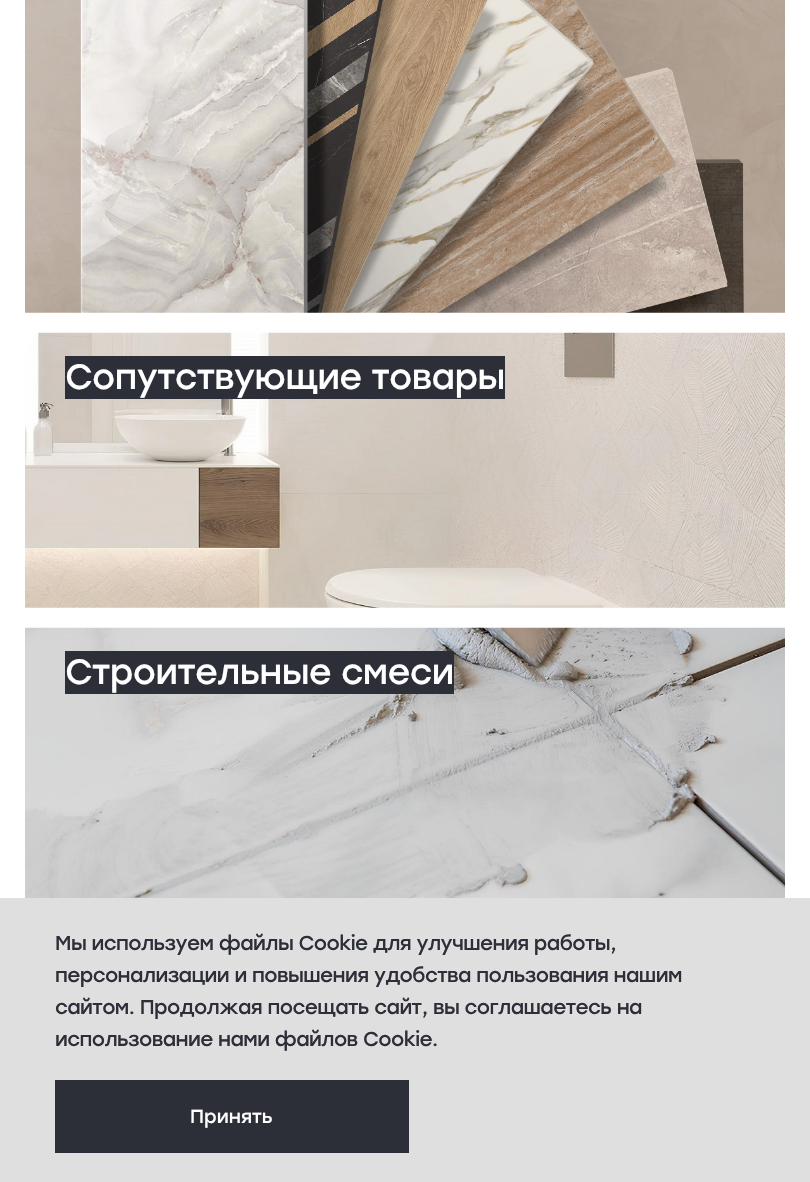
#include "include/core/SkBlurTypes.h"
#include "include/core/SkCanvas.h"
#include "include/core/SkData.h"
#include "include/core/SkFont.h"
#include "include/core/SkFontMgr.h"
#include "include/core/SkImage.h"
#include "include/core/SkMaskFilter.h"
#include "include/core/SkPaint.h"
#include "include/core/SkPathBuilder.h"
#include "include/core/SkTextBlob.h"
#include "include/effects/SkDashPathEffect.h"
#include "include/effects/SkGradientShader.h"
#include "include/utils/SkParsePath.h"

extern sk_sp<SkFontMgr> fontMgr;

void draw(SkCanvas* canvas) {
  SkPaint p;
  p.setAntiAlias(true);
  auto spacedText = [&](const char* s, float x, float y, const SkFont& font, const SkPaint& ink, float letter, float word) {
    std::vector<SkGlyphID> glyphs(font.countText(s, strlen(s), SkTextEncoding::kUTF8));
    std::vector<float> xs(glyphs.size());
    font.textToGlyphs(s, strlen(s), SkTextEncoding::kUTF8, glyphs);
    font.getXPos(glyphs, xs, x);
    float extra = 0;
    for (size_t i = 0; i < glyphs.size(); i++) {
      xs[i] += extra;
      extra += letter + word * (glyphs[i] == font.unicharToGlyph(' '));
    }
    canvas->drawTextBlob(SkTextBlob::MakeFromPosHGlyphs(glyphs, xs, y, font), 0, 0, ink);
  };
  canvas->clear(SK_ColorWHITE);
  canvas->drawImageRect(SkImages::DeferredFromEncodedData(SkData::MakeFromFileName("images/1.png")), SkRect::MakeLTRB(25, 0, 785, 313), SkSamplingOptions());
  canvas->drawImageRect(SkImages::DeferredFromEncodedData(SkData::MakeFromFileName("images/2.png")), SkRect::MakeLTRB(25, 332, 785, 608), SkSamplingOptions());
  p.setColor(SkColorSetRGB(44, 46, 56));
  canvas->drawRect(SkRect::MakeLTRB(65, 356, 505, 399), p);
  canvas->drawImageRect(SkImages::DeferredFromEncodedData(SkData::MakeFromFileName("images/3.png")), SkRect::MakeLTRB(25, 627, 785, 898), SkSamplingOptions());
  canvas->drawRect(SkRect::MakeLTRB(65, 651, 454, 694), p);
  p.setColor(SkColorSetRGB(223, 223, 224));
  canvas->drawRect(SkRect::MakeLTRB(0, 898, 810, 1182), p);
  p.setColor(SkColorSetRGB(44, 46, 56));
  canvas->drawRect(SkRect::MakeLTRB(55, 1080, 409, 1153), p);
  SkFont font1(fontMgr->matchFamilyStyle("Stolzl", SkFontStyle::Normal()), 35);
  font1.setSubpixel(true);
  p.setColor(SK_ColorWHITE);
  spacedText("Сопутствующие товары", 65, 389, font1, p, -0.6f, 0);
  spacedText("Строительные смеси", 65, 684, font1, p, -0.6f, 0);
  SkFont font2(fontMgr->matchFamilyStyle("Stolzl", SkFontStyle::Normal()), 20);
  font2.setSubpixel(true);
  p.setColor(SkColorSetRGB(44, 46, 56));
  spacedText("Мы используем файлы Cookie для улучшения работы,", 55, 950, font2, p, -0.6f, 0);
  spacedText("персонализации и повышения удобства пользования нашим", 55, 982, font2, p, -0.6f, 0);
  spacedText("сайтом. Продолжая посещать сайт, вы соглашаетесь на", 55, 1014, font2, p, -0.6f, 0);
  spacedText("использование нами файлов Cookie.", 55, 1046, font2, p, -0.6f, 0);
  SkFont font3(fontMgr->matchFamilyStyle("Stolzl", SkFontStyle::Normal()), 18.75f);
  font3.setSubpixel(true);
  p.setColor(SK_ColorWHITE);
  canvas->drawString("Принять", 190, 1123, font3, p);
}
